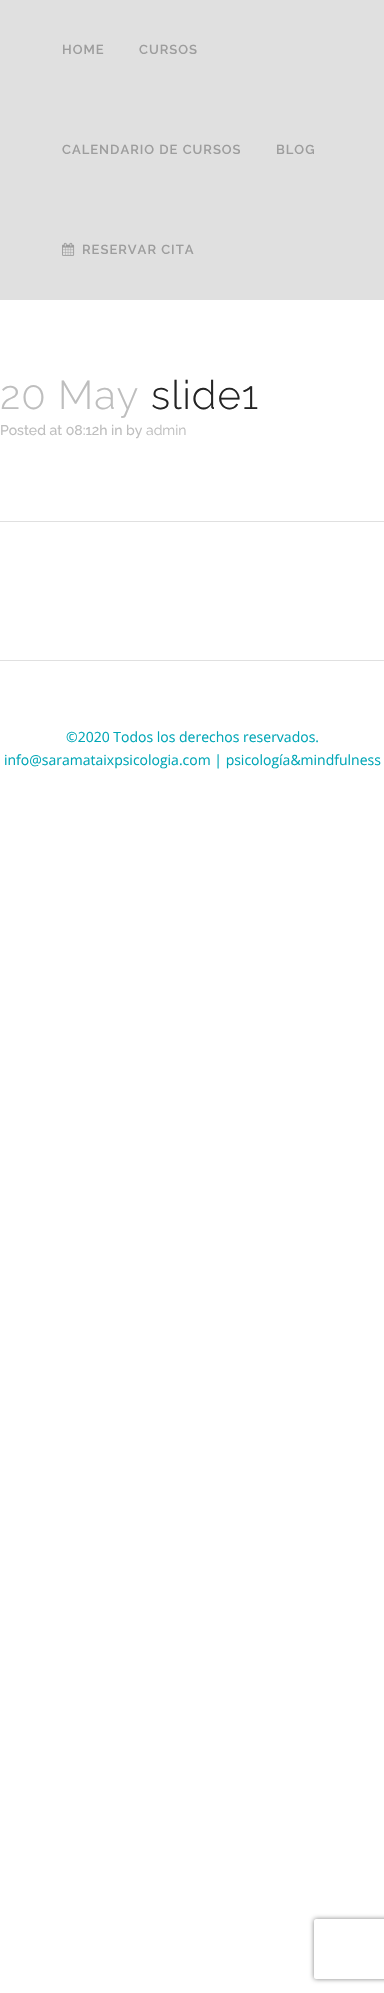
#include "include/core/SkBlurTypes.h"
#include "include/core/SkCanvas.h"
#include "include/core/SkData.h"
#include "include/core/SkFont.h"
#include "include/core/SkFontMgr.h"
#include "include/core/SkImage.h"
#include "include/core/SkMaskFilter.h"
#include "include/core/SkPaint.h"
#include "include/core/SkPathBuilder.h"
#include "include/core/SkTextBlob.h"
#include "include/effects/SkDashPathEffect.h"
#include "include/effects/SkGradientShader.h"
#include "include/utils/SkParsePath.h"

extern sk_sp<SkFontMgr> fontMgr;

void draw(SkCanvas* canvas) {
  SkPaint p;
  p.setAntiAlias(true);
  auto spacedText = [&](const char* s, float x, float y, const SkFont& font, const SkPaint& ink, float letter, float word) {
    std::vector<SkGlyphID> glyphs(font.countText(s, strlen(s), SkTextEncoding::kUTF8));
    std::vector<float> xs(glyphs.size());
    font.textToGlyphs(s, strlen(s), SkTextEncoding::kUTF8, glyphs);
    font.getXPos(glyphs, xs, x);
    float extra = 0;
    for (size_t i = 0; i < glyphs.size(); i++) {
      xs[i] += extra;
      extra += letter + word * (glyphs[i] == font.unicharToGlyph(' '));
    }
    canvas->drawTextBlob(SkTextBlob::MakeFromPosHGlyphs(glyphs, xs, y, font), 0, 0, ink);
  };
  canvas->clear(SK_ColorWHITE);
  p.setColor(SkColorSetRGB(224, 224, 224));
  canvas->drawRect(SkRect::MakeLTRB(0, 0, 384, 300), p);
  canvas->drawImageRect(SkImages::DeferredFromEncodedData(SkData::MakeFromFileName("images/1.png")), SkRect::MakeLTRB(62, 242, 75, 256), SkSamplingOptions());
  canvas->drawRect(SkRect::MakeLTRB(0, 521, 384, 522), p);
  canvas->drawRect(SkRect::MakeLTRB(0, 660, 384, 661), p);
  canvas->save();
  canvas->clipPath(SkPathBuilder(SkPathFillType::kEvenOdd).moveTo(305, 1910).lineTo(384, 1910).lineTo(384, 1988).lineTo(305, 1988).close().moveTo(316, 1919).lineTo(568, 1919).cubicTo(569, 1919, 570, 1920, 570, 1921).lineTo(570, 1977).cubicTo(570, 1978, 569, 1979, 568, 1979).lineTo(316, 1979).cubicTo(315, 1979, 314, 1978, 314, 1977).lineTo(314, 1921).cubicTo(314, 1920, 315, 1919, 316, 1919).close().detach(), true);
  p.setColor(SkColorSetRGB(128, 128, 128));
  p.setMaskFilter(SkMaskFilter::MakeBlur(kNormal_SkBlurStyle, 2.5f));
  canvas->drawRoundRect(SkRect::MakeLTRB(314, 1919, 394, 1979), 2, 2, p);
  p.setMaskFilter(nullptr);
  canvas->restore();
  SkFont font1(fontMgr->matchFamilyStyle("Raleway", SkFontStyle(600, SkFontStyle::kNormal_Width, SkFontStyle::kUpright_Slant)), 13);
  font1.setSubpixel(true);
  p.setColor(SkColorSetRGB(157, 157, 157));
  spacedText("HOME", 62, 54, font1, p, 1, 0);
  spacedText("CURSOS", 139, 54, font1, p, 1, 0);
  spacedText("CALENDARIO DE CURSOS", 62, 154, font1, p, 1, 0);
  spacedText("BLOG", 276, 154, font1, p, 1, 0);
  spacedText("RESERVAR CITA", 82, 254, font1, p, 1, 0);
  SkFont font2(fontMgr->matchFamilyStyle("Raleway", SkFontStyle(300, SkFontStyle::kNormal_Width, SkFontStyle::kUpright_Slant)), 40);
  font2.setSubpixel(true);
  p.setColor(SkColorSetRGB(190, 190, 190));
  spacedText("20 May", 0, 409, font2, p, 1, 0);
  p.setColor(SkColorSetRGB(36, 36, 36));
  spacedText("slide1", 151, 409, font2, p, 1, 0);
  SkFont font3(fontMgr->matchFamilyStyle("Raleway", SkFontStyle(500, SkFontStyle::kNormal_Width, SkFontStyle::kUpright_Slant)), 14);
  font3.setSubpixel(true);
  p.setColor(SkColorSetRGB(190, 190, 190));
  canvas->drawString("Posted at 08:12h in by", 0, 435, font3, p);
  SkFont font4(fontMgr->matchFamilyStyle("Raleway", SkFontStyle::Normal()), 14);
  font4.setSubpixel(true);
  canvas->drawString("admin", 146, 435, font4, p);
  SkFont font5(fontMgr->matchFamilyStyle("Open Sans", SkFontStyle::Normal()), 14);
  font5.setSubpixel(true);
  p.setColor(SkColorSetRGB(0, 166, 182));
  canvas->drawString("©2020 Todos los derechos reservados.", 66, 742, font5, p);
  canvas->drawString("info@saramataixpsicologia.com | psicología&mindfulness", 4, 765, font5, p);
}
